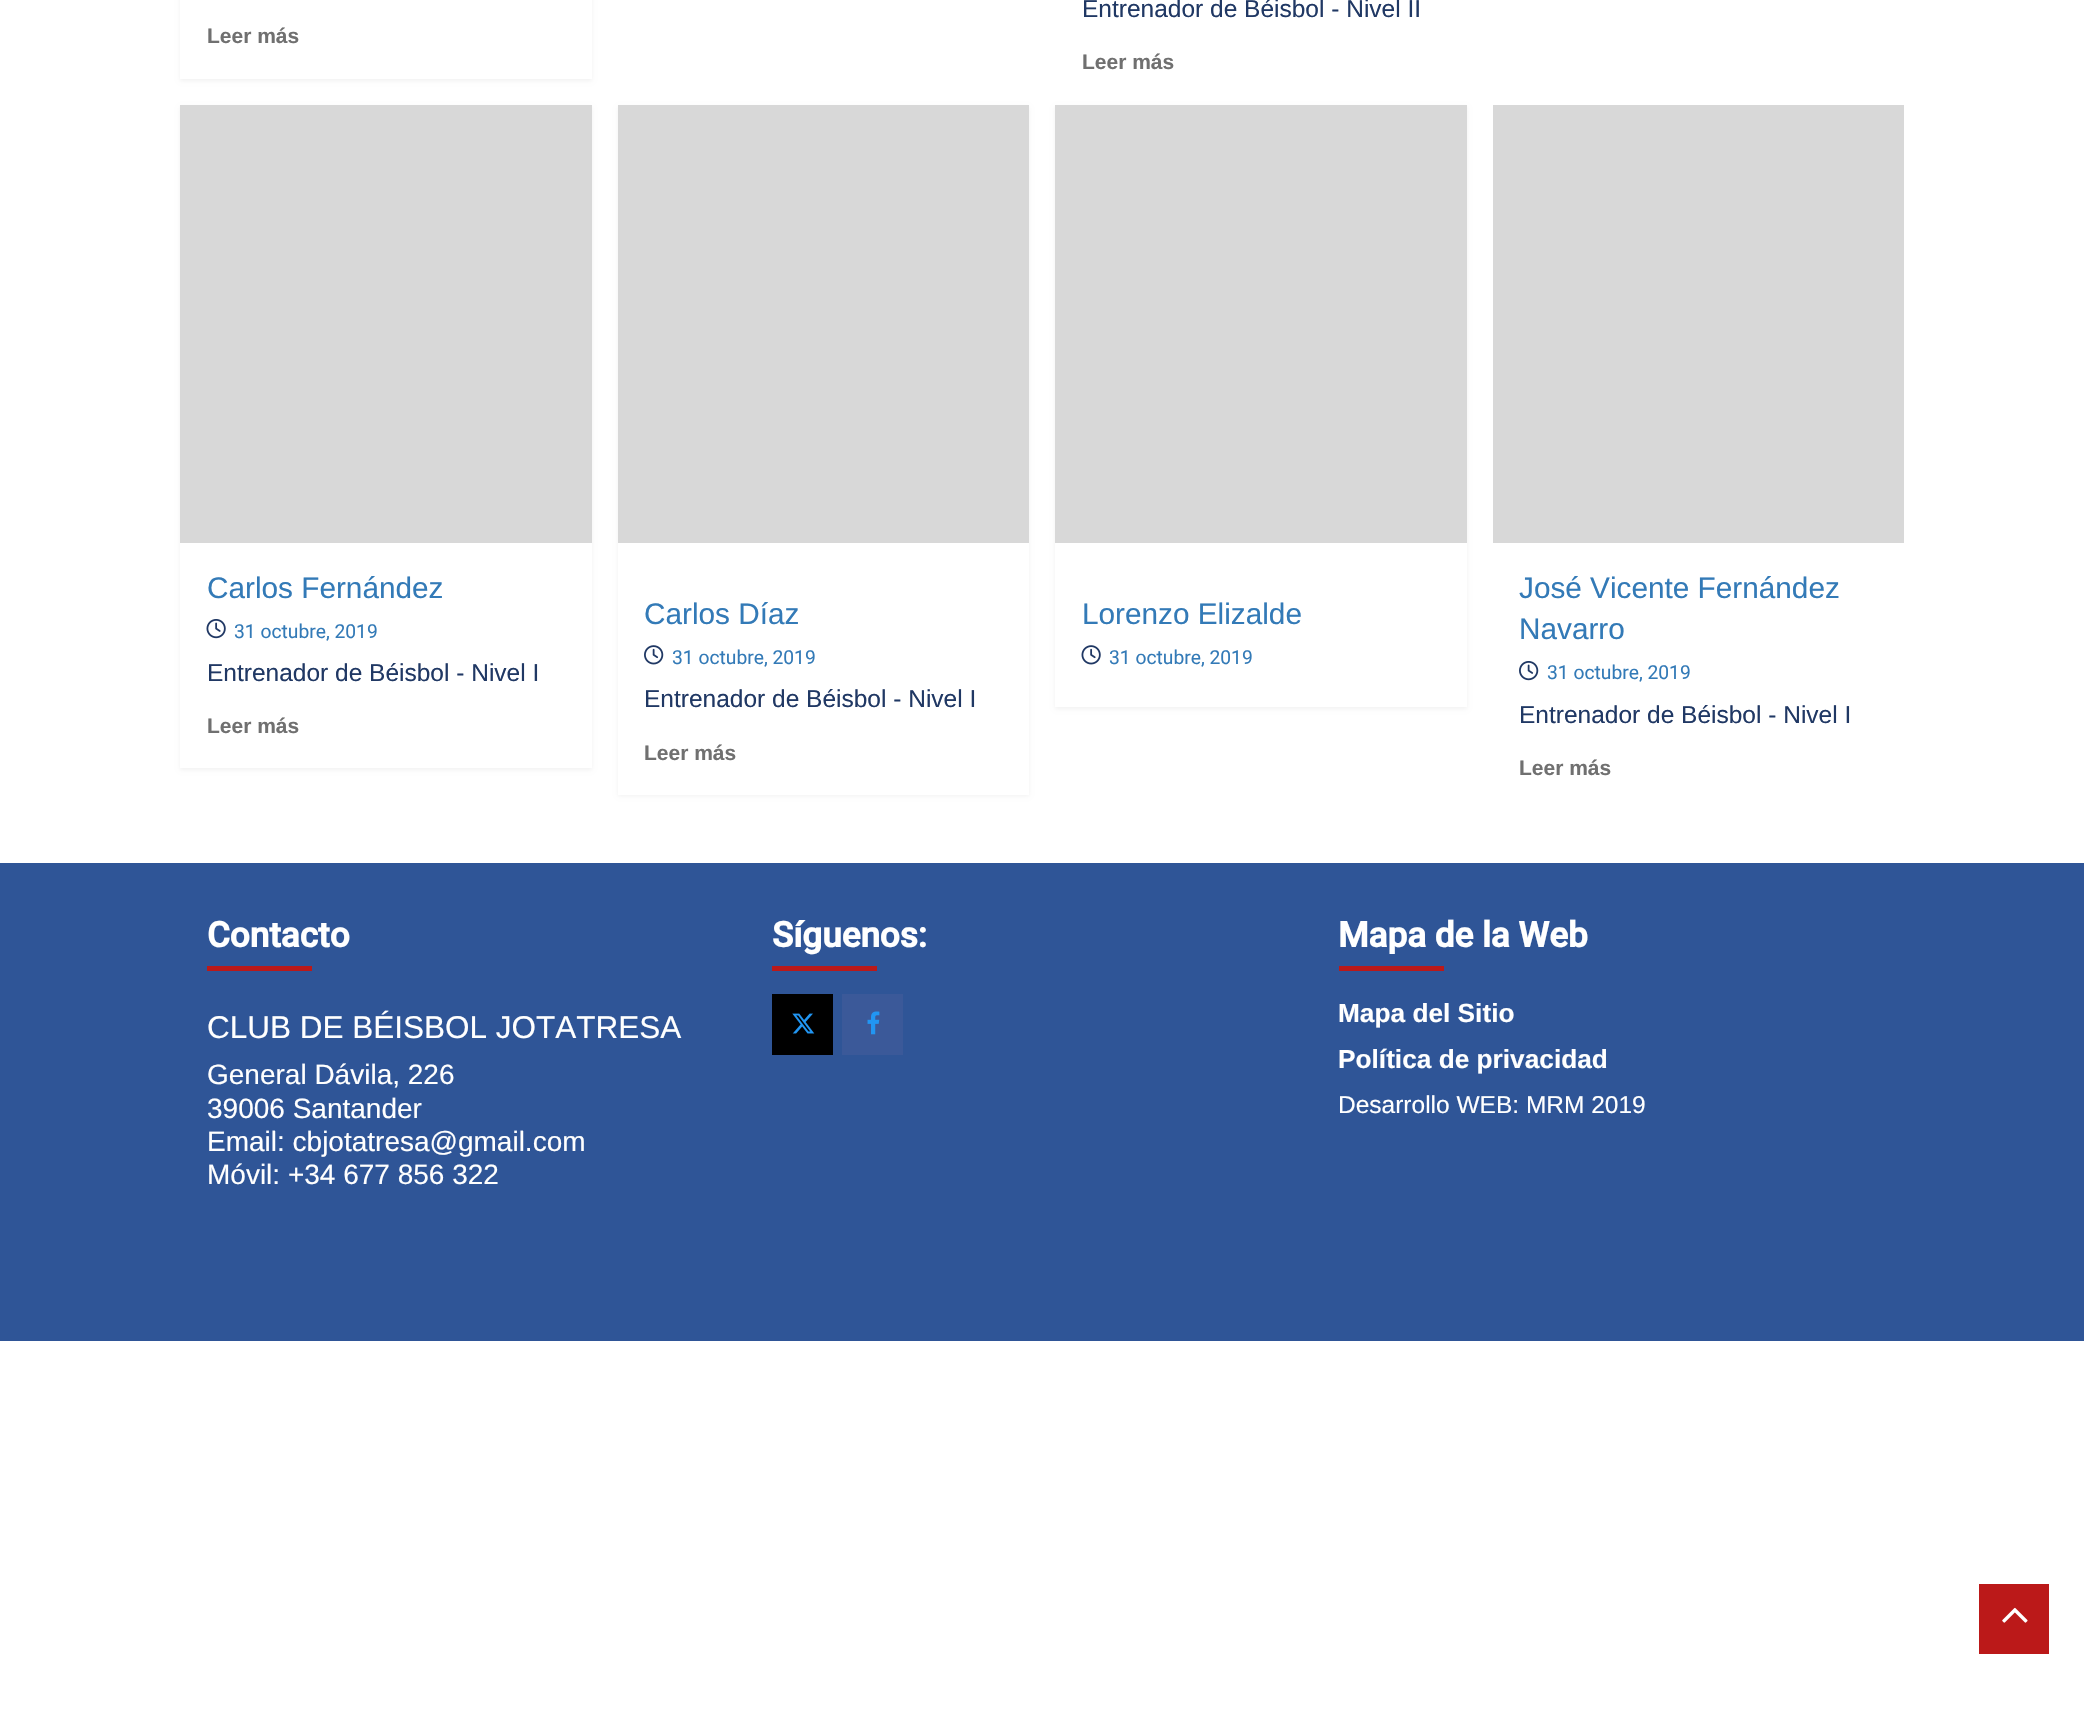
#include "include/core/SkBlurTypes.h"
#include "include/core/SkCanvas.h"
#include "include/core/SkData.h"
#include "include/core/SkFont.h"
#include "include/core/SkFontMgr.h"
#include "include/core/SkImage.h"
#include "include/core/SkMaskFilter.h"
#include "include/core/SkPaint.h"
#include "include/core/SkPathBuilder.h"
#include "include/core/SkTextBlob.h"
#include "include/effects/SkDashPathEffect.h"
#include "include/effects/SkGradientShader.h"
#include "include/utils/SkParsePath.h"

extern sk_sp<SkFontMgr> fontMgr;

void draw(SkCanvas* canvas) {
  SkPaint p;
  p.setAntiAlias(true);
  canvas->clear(SK_ColorWHITE);
  p.setColor(SkColorSetARGB(13, 0, 0, 0));
  p.setMaskFilter(SkMaskFilter::MakeBlur(kNormal_SkBlurStyle, 2));
  canvas->drawRect(SkRect::MakeLTRB(180, -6, 592, 81), p);
  p.setMaskFilter(nullptr);
  p.setColor(SK_ColorWHITE);
  canvas->drawRect(SkRect::MakeLTRB(180, 0, 592, 79), p);
  p.setColor(SkColorSetARGB(13, 0, 0, 0));
  p.setMaskFilter(SkMaskFilter::MakeBlur(kNormal_SkBlurStyle, 2));
  canvas->drawRect(SkRect::MakeLTRB(180, 107, 592, 770), p);
  p.setMaskFilter(nullptr);
  p.setColor(SK_ColorWHITE);
  canvas->drawRect(SkRect::MakeLTRB(180, 543, 592, 768), p);
  p.setColor(SkColorSetRGB(216, 216, 216));
  canvas->drawRect(SkRect::MakeLTRB(180, 105, 592, 543), p);
  canvas->drawImageRect(SkImages::DeferredFromEncodedData(SkData::MakeFromFileName("images/1.png")), SkRect::MakeLTRB(206, 619, 226, 639), SkSamplingOptions());
  p.setColor(SkColorSetARGB(13, 0, 0, 0));
  p.setMaskFilter(SkMaskFilter::MakeBlur(kNormal_SkBlurStyle, 2));
  canvas->drawRect(SkRect::MakeLTRB(618, 107, 1029, 796), p);
  p.setMaskFilter(nullptr);
  p.setColor(SK_ColorWHITE);
  canvas->drawRect(SkRect::MakeLTRB(618, 543, 1029, 795), p);
  p.setColor(SkColorSetRGB(216, 216, 216));
  canvas->drawRect(SkRect::MakeLTRB(618, 105, 1029, 543), p);
  canvas->drawImageRect(SkImages::DeferredFromEncodedData(SkData::MakeFromFileName("images/2.png")), SkRect::MakeLTRB(644, 645, 664, 665), SkSamplingOptions());
  p.setColor(SkColorSetARGB(13, 0, 0, 0));
  p.setMaskFilter(SkMaskFilter::MakeBlur(kNormal_SkBlurStyle, 2));
  canvas->drawRect(SkRect::MakeLTRB(1055, 107, 1467, 709), p);
  p.setMaskFilter(nullptr);
  p.setColor(SK_ColorWHITE);
  canvas->drawRect(SkRect::MakeLTRB(1055, 543, 1467, 707), p);
  p.setColor(SkColorSetRGB(216, 216, 216));
  canvas->drawRect(SkRect::MakeLTRB(1055, 105, 1467, 543), p);
  canvas->drawImageRect(SkImages::DeferredFromEncodedData(SkData::MakeFromFileName("images/3.png")), SkRect::MakeLTRB(1081, 645, 1101, 665), SkSamplingOptions());
  canvas->drawRect(SkRect::MakeLTRB(1493, 105, 1904, 543), p);
  canvas->drawImageRect(SkImages::DeferredFromEncodedData(SkData::MakeFromFileName("images/4.png")), SkRect::MakeLTRB(1519, 661, 1539, 681), SkSamplingOptions());
  p.setColor(SkColorSetRGB(47, 85, 151));
  canvas->drawRect(SkRect::MakeLTRB(0, 863, 2084, 1341), p);
  p.setColor(SkColorSetRGB(187, 25, 25));
  canvas->drawRect(SkRect::MakeLTRB(207, 966, 312, 971), p);
  canvas->drawRect(SkRect::MakeLTRB(772, 966, 877, 971), p);
  p.setColor(SK_ColorBLACK);
  canvas->drawRect(SkRect::MakeLTRB(772, 994, 833, 1055), p);
  canvas->drawImageRect(SkImages::DeferredFromEncodedData(SkData::MakeFromFileName("images/5.png")), SkRect::MakeLTRB(792, 1013, 815, 1034), SkSamplingOptions());
  p.setColor(SkColorSetRGB(59, 89, 153));
  canvas->drawRect(SkRect::MakeLTRB(842, 994, 903, 1055), p);
  canvas->drawImageRect(SkImages::DeferredFromEncodedData(SkData::MakeFromFileName("images/6.png")), SkRect::MakeLTRB(867, 1011, 880, 1035), SkSamplingOptions());
  p.setColor(SkColorSetRGB(187, 25, 25));
  canvas->drawRect(SkRect::MakeLTRB(1339, 966, 1444, 971), p);
  canvas->drawRect(SkRect::MakeLTRB(1979, 1584, 2049, 1654), p);
  canvas->drawImageRect(SkImages::DeferredFromEncodedData(SkData::MakeFromFileName("images/7.png")), SkRect::MakeLTRB(2002, 1607, 2028, 1623), SkSamplingOptions());
  SkFont font1(fontMgr->matchFamilyStyle("Liberation Sans", SkFontStyle::Bold()), 21);
  font1.setSubpixel(true);
  p.setColor(SkColorSetRGB(112, 112, 112));
  canvas->drawString("Leer más", 207, 43, font1, p);
  SkFont font2(fontMgr->matchFamilyStyle("Liberation Sans", SkFontStyle::Normal()), 24.5f);
  font2.setSubpixel(true);
  p.setColor(SkColorSetRGB(32, 56, 100));
  canvas->drawString("Entrenador de Béisbol - Nivel II", 1082, 17, font2, p);
  p.setColor(SkColorSetRGB(112, 112, 112));
  canvas->drawString("Leer más", 1082, 69, font1, p);
  SkFont font3(fontMgr->matchFamilyStyle("Liberation Sans", SkFontStyle::Normal()), 29.75f);
  font3.setSubpixel(true);
  p.setColor(SkColorSetRGB(51, 122, 183));
  canvas->drawString("Carlos Fernández", 207, 598, font3, p);
  SkFont font4(fontMgr->matchFamilyStyle("Roboto", SkFontStyle::Normal()), 19.25f);
  font4.setSubpixel(true);
  canvas->drawString("31 octubre, 2019", 234, 638, font4, p);
  p.setColor(SkColorSetRGB(32, 56, 100));
  canvas->drawString("Entrenador de Béisbol - Nivel I", 207, 681, font2, p);
  p.setColor(SkColorSetRGB(112, 112, 112));
  canvas->drawString("Leer más", 207, 733, font1, p);
  p.setColor(SkColorSetRGB(51, 122, 183));
  canvas->drawString("Carlos Díaz", 644, 624, font3, p);
  canvas->drawString("31 octubre, 2019", 672, 664, font4, p);
  p.setColor(SkColorSetRGB(32, 56, 100));
  canvas->drawString("Entrenador de Béisbol - Nivel I", 644, 707, font2, p);
  p.setColor(SkColorSetRGB(112, 112, 112));
  canvas->drawString("Leer más", 644, 760, font1, p);
  p.setColor(SkColorSetRGB(51, 122, 183));
  canvas->drawString("Lorenzo Elizalde", 1082, 624, font3, p);
  canvas->drawString("31 octubre, 2019", 1109, 664, font4, p);
  canvas->drawString("José Vicente Fernández", 1519, 598, font3, p);
  canvas->drawString("Navarro", 1519, 639, font3, p);
  canvas->drawString("31 octubre, 2019", 1547, 679, font4, p);
  p.setColor(SkColorSetRGB(32, 56, 100));
  canvas->drawString("Entrenador de Béisbol - Nivel I", 1519, 723, font2, p);
  p.setColor(SkColorSetRGB(112, 112, 112));
  canvas->drawString("Leer más", 1519, 775, font1, p);
  SkFont font5(fontMgr->matchFamilyStyle("Roboto", SkFontStyle::Bold()), 35);
  font5.setSubpixel(true);
  p.setColor(SK_ColorWHITE);
  canvas->drawString("Contacto", 207, 947, font5, p);
  SkFont font6(fontMgr->matchFamilyStyle("Liberation Sans", SkFontStyle::Normal()), 31.5f);
  font6.setSubpixel(true);
  canvas->drawString("CLUB DE BÉISBOL JOTATRESA", 207, 1038, font6, p);
  SkFont font7(fontMgr->matchFamilyStyle("Liberation Sans", SkFontStyle::Normal()), 28);
  font7.setSubpixel(true);
  canvas->drawString("General Dávila, 226", 207, 1084, font7, p);
  canvas->drawString("39006 Santander", 207, 1118, font7, p);
  canvas->drawString("Email: cbjotatresa@gmail.com", 207, 1151, font7, p);
  canvas->drawString("Móvil: +34 677 856 322", 207, 1184, font7, p);
  canvas->drawString("Síguenos:", 772, 947, font5, p);
  canvas->drawString("Mapa de la Web", 1338, 947, font5, p);
  SkFont font8(fontMgr->matchFamilyStyle("Liberation Sans", SkFontStyle::Bold()), 26.25f);
  font8.setSubpixel(true);
  canvas->drawString("Mapa del Sitio", 1338, 1022, font8, p);
  canvas->drawString("Política de privacidad", 1338, 1068, font8, p);
  canvas->drawString("Desarrollo WEB: MRM 2019", 1338, 1113, font2, p);
}
